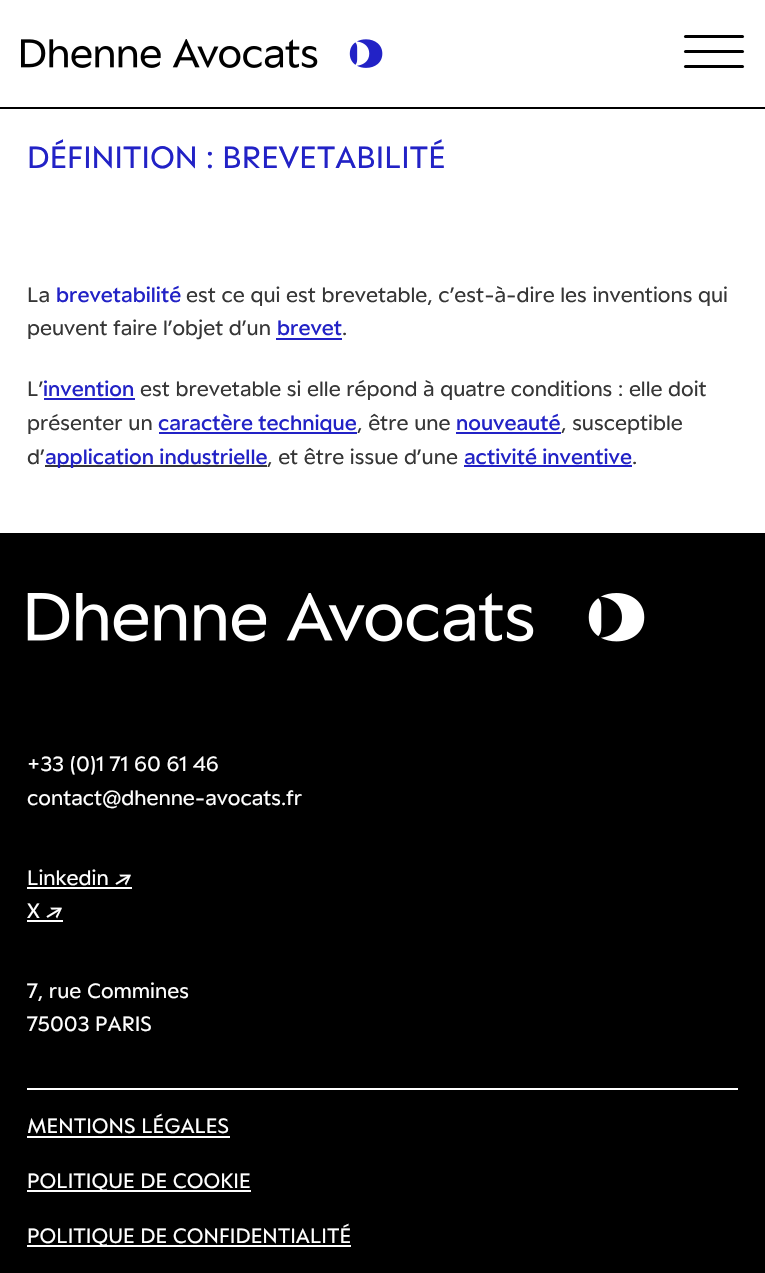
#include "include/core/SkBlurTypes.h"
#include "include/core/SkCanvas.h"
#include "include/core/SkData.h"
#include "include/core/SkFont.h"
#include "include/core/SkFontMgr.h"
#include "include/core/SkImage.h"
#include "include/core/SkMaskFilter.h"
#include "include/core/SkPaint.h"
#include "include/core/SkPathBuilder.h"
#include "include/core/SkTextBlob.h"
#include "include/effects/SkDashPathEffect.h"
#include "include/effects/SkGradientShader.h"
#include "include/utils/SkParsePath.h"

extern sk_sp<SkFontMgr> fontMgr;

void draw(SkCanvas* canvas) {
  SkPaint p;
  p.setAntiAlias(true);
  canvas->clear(SK_ColorWHITE);
  p.setColor(SK_ColorBLACK);
  canvas->drawRect(SkRect::MakeLTRB(0, 107, 765, 109), p);
  canvas->drawImageRect(SkImages::DeferredFromEncodedData(SkData::MakeFromFileName("images/1.png")), SkRect::MakeLTRB(21, 39, 383, 68), SkSamplingOptions());
  canvas->drawRoundRect(SkRect::MakeLTRB(684, 50, 744, 53), 1.5f, 1.5f, p);
  canvas->drawRoundRect(SkRect::MakeLTRB(684, 35, 744, 38), 1.5f, 1.5f, p);
  canvas->drawRoundRect(SkRect::MakeLTRB(684, 65, 744, 68), 1.5f, 1.5f, p);
  p.setColor(SkColorSetRGB(34, 34, 198));
  canvas->drawRect(SkRect::MakeLTRB(276, 338, 342, 340), p);
  canvas->drawRect(SkRect::MakeLTRB(44, 398, 135, 400), p);
  canvas->drawRect(SkRect::MakeLTRB(159, 432, 357, 434), p);
  canvas->drawRect(SkRect::MakeLTRB(456, 432, 561, 434), p);
  p.setColor(SkColorSetRGB(54, 54, 54));
  canvas->drawRect(SkRect::MakeLTRB(45, 465, 267, 467), p);
  p.setColor(SkColorSetRGB(34, 34, 198));
  canvas->drawRect(SkRect::MakeLTRB(464, 465, 632, 467), p);
  p.setColor(SK_ColorBLACK);
  canvas->drawRect(SkRect::MakeLTRB(0, 533, 765, 1273), p);
  canvas->drawImageRect(SkImages::DeferredFromEncodedData(SkData::MakeFromFileName("images/2.png")), SkRect::MakeLTRB(27, 593, 645, 642), SkSamplingOptions());
  p.setColor(SK_ColorWHITE);
  canvas->drawRect(SkRect::MakeLTRB(27, 887, 132, 889), p);
  canvas->drawRect(SkRect::MakeLTRB(27, 920, 63, 922), p);
  canvas->drawRect(SkRect::MakeLTRB(27, 1088, 738, 1090), p);
  canvas->drawRect(SkRect::MakeLTRB(27, 1136, 230, 1138), p);
  canvas->drawRect(SkRect::MakeLTRB(27, 1190, 251, 1192), p);
  canvas->drawRect(SkRect::MakeLTRB(27, 1245, 351, 1247), p);
  SkFont font1(fontMgr->matchFamilyStyle("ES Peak", SkFontStyle::Normal()), 33.5f);
  font1.setSubpixel(true);
  p.setColor(SkColorSetRGB(34, 34, 198));
  canvas->drawString("DÉFINITION : BREVETABILITÉ", 27, 168, font1, p);
  SkFont font2(fontMgr->matchFamilyStyle("ES Peak", SkFontStyle::Normal()), 22.5f);
  font2.setSubpixel(true);
  p.setColor(SkColorSetRGB(54, 54, 54));
  canvas->drawString("La", 27, 302, font2, p);
  SkFont font3(fontMgr->matchFamilyStyle("ES Peak", SkFontStyle(500, SkFontStyle::kNormal_Width, SkFontStyle::kUpright_Slant)), 22.5f);
  font3.setSubpixel(true);
  p.setColor(SkColorSetRGB(34, 34, 198));
  canvas->drawString("brevetabilité", 56, 302, font3, p);
  p.setColor(SkColorSetRGB(54, 54, 54));
  canvas->drawString("est ce qui est brevetable, c’est-à-dire les inventions qui", 186, 302, font2, p);
  canvas->drawString("peuvent faire l’objet d’un", 27, 335, font2, p);
  p.setColor(SkColorSetRGB(34, 34, 198));
  canvas->drawString("brevet", 277, 335, font3, p);
  p.setColor(SkColorSetRGB(54, 54, 54));
  canvas->drawString(".", 342, 335, font2, p);
  canvas->drawString("L’", 27, 396, font2, p);
  p.setColor(SkColorSetRGB(34, 34, 198));
  canvas->drawString("invention", 43, 396, font3, p);
  p.setColor(SkColorSetRGB(54, 54, 54));
  canvas->drawString("est brevetable si elle répond à quatre conditions : elle doit", 140, 396, font2, p);
  canvas->drawString("présenter un", 27, 430, font2, p);
  p.setColor(SkColorSetRGB(34, 34, 198));
  canvas->drawString("caractère technique", 158, 430, font3, p);
  p.setColor(SkColorSetRGB(54, 54, 54));
  canvas->drawString(", être une", 357, 430, font2, p);
  p.setColor(SkColorSetRGB(34, 34, 198));
  canvas->drawString("nouveauté", 456, 430, font3, p);
  p.setColor(SkColorSetRGB(54, 54, 54));
  canvas->drawString(", susceptible", 561, 430, font2, p);
  canvas->drawString("d’", 27, 464, font2, p);
  p.setColor(SkColorSetRGB(34, 34, 198));
  canvas->drawString("application industrielle", 45, 464, font3, p);
  p.setColor(SkColorSetRGB(54, 54, 54));
  canvas->drawString(", et être issue d’une", 267, 464, font2, p);
  p.setColor(SkColorSetRGB(34, 34, 198));
  canvas->drawString("activité inventive", 464, 464, font3, p);
  p.setColor(SkColorSetRGB(54, 54, 54));
  canvas->drawString(".", 632, 464, font2, p);
  p.setColor(SK_ColorWHITE);
  canvas->drawString("+33 (0)1 71 60 61 46", 27, 771, font2, p);
  canvas->drawString("contact@dhenne-avocats.fr", 27, 805, font2, p);
  canvas->drawString("Linkedin ↗", 27, 885, font2, p);
  canvas->drawString("X ↗", 27, 918, font2, p);
  canvas->drawString("7, rue Commines", 27, 998, font2, p);
  canvas->drawString("75003 PARIS", 27, 1031, font2, p);
  canvas->drawString("MENTIONS LÉGALES", 27, 1133, font2, p);
  canvas->drawString("POLITIQUE DE COOKIE", 27, 1188, font2, p);
  canvas->drawString("POLITIQUE DE CONFIDENTIALITÉ", 27, 1243, font2, p);
}
